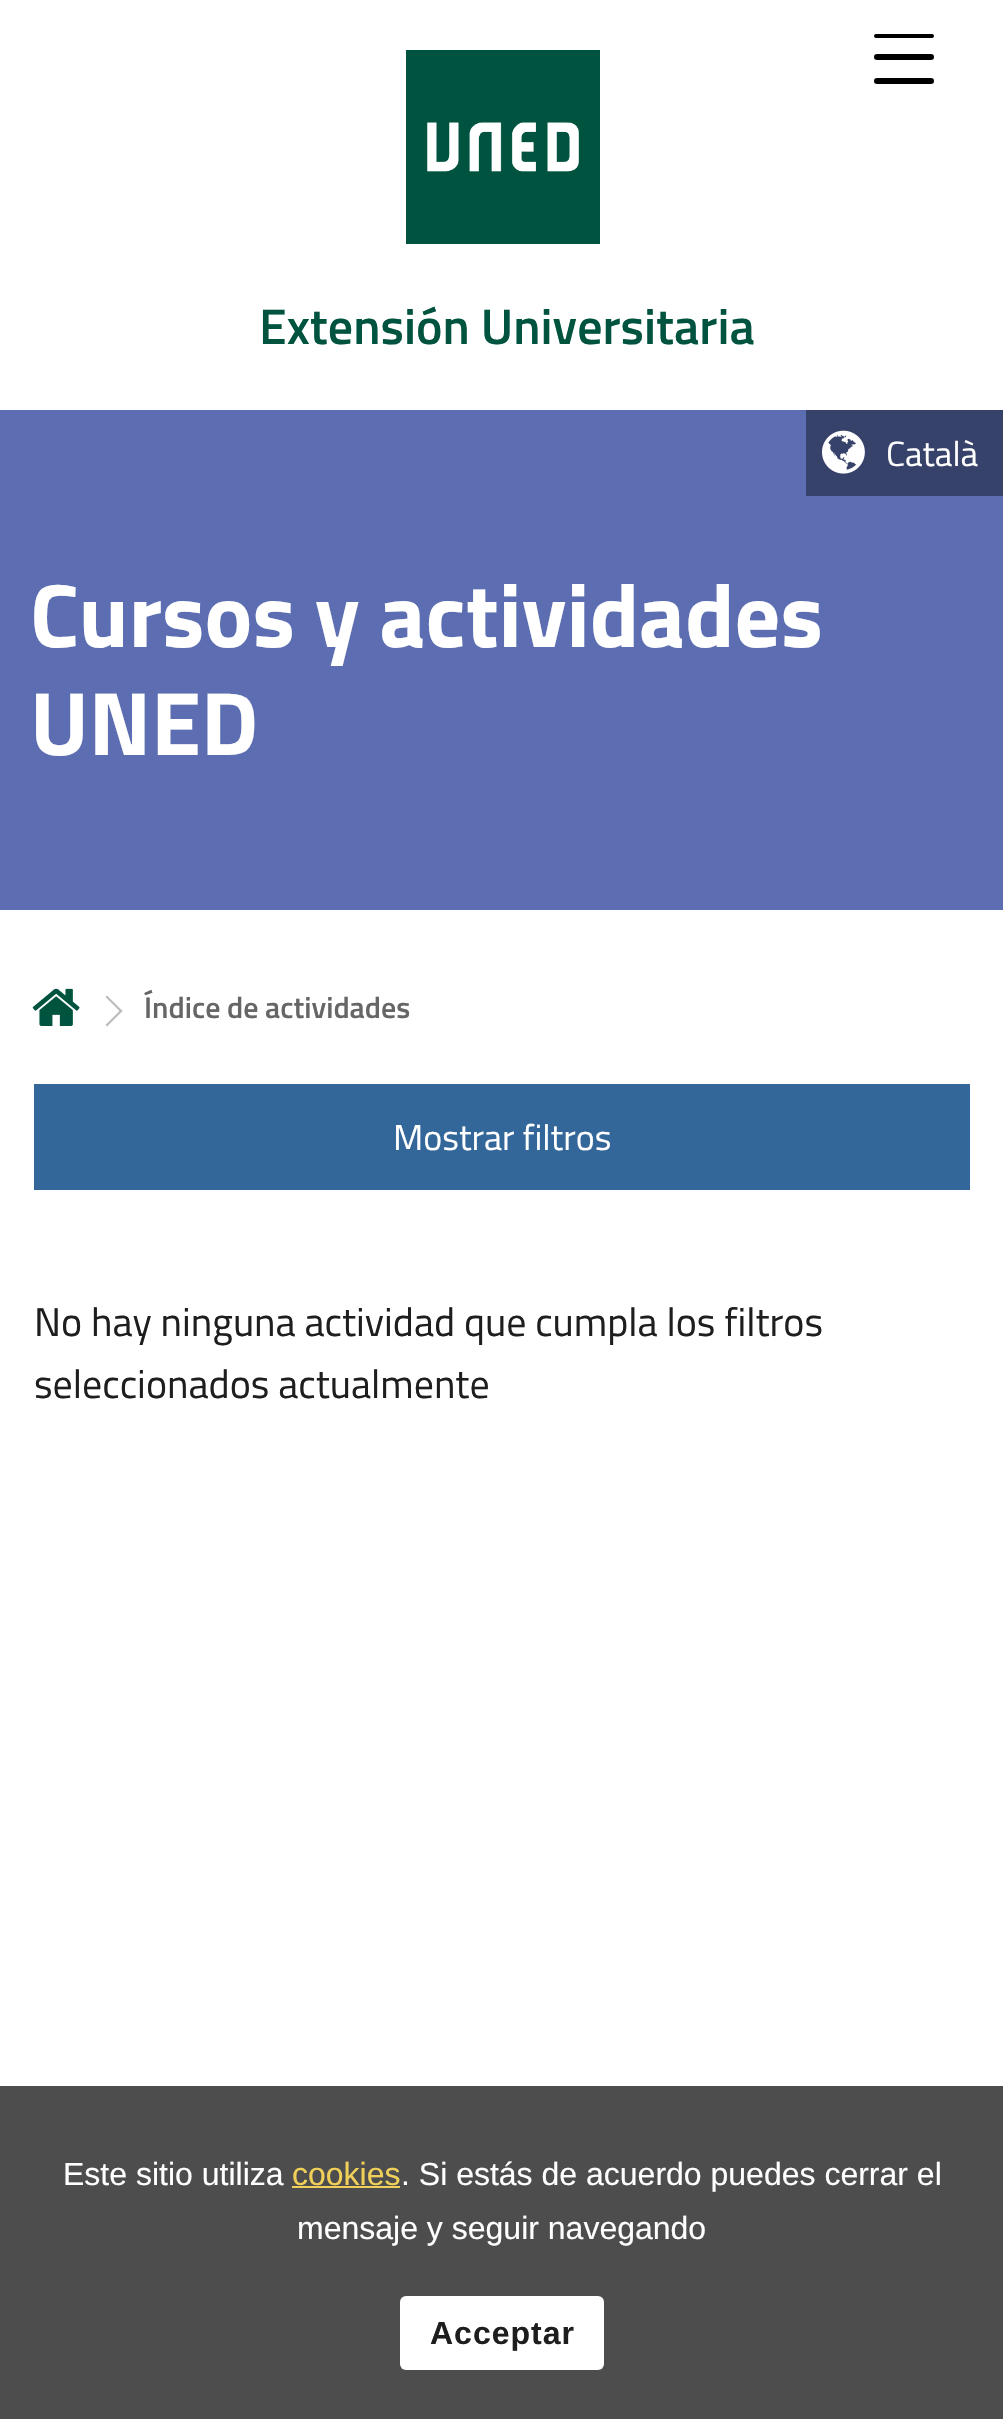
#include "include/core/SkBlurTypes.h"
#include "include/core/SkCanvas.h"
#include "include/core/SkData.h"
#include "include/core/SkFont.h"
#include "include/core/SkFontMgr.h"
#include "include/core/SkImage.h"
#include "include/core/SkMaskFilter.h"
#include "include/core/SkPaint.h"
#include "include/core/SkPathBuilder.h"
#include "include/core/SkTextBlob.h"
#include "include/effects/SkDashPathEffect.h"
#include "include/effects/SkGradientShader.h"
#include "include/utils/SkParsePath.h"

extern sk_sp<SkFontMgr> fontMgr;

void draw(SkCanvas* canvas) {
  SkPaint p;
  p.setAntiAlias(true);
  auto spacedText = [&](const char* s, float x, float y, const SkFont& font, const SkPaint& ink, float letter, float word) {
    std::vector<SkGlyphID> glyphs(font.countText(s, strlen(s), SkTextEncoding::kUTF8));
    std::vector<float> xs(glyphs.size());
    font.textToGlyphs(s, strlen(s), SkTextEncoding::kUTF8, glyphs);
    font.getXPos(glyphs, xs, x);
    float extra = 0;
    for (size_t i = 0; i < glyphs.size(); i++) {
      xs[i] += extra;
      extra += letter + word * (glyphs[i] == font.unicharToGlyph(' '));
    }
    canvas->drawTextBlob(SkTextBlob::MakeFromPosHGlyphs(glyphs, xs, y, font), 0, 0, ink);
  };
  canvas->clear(SK_ColorWHITE);
  p.setColor(SK_ColorBLACK);
  canvas->drawRoundRect(SkRect::MakeLTRB(874, 34, 934, 38), 2, 2, p);
  canvas->drawRoundRect(SkRect::MakeLTRB(874, 54, 934, 60), 3, 3, p);
  canvas->drawRoundRect(SkRect::MakeLTRB(874, 78, 934, 84), 3, 3, p);
  canvas->drawImageRect(SkImages::DeferredFromEncodedData(SkData::MakeFromFileName("images/1.png")), SkRect::MakeLTRB(406, 50, 600, 244), SkSamplingOptions());
  p.setColor(SkColorSetRGB(92, 110, 177));
  canvas->drawRect(SkRect::MakeLTRB(0, 410, 1003, 910), p);
  p.setColor(SkColorSetRGB(55, 66, 106));
  canvas->drawRect(SkRect::MakeLTRB(806, 410, 1003, 496), p);
  canvas->drawImageRect(SkImages::DeferredFromEncodedData(SkData::MakeFromFileName("images/2.png")), SkRect::MakeLTRB(822, 430, 865, 474), SkSamplingOptions());
  canvas->drawImageRect(SkImages::DeferredFromEncodedData(SkData::MakeFromFileName("images/3.png")), SkRect::MakeLTRB(32, 988, 80, 1026), SkSamplingOptions());
  p.setColor(SkColorSetRGB(187, 187, 187));
  canvas->drawPath(SkPathBuilder().moveTo(107, 995.5f).lineTo(122.5f, 1011).lineTo(121, 1012.5f).lineTo(105.5f, 997).close().detach(), p);
  canvas->drawPath(SkPathBuilder().moveTo(121, 1009.5f).lineTo(122.5f, 1011).lineTo(107, 1026.5f).lineTo(105.5f, 1025).close().detach(), p);
  p.setColor(SkColorSetRGB(51, 102, 153));
  canvas->drawRect(SkRect::MakeLTRB(34, 1084, 970, 1190), p);
  p.setColor(SkColorSetRGB(77, 77, 77));
  canvas->drawRect(SkRect::MakeLTRB(0, 2086, 1003, 2419), p);
  p.setColor(SkColorSetRGB(241, 208, 90));
  canvas->drawRect(SkRect::MakeLTRB(292, 2186, 400, 2188), p);
  p.setColor(SK_ColorWHITE);
  canvas->drawRoundRect(SkRect::MakeLTRB(400, 2296, 604, 2370), 6, 6, p);
  SkFont font1(fontMgr->matchFamilyStyle("Titillium Web", SkFontStyle(600, SkFontStyle::kNormal_Width, SkFontStyle::kUpright_Slant)), 50);
  font1.setSubpixel(true);
  p.setColor(SkColorSetRGB(0, 83, 62));
  canvas->drawString("Extensión Universitaria", 259, 344, font1, p);
  SkFont font2(fontMgr->matchFamilyStyle("Titillium Web", SkFontStyle::Bold()), 90);
  font2.setSubpixel(true);
  p.setColor(SK_ColorWHITE);
  canvas->drawString("Cursos y actividades", 30, 647, font2, p);
  canvas->drawString("UNED", 30, 755, font2, p);
  SkFont font3(fontMgr->matchFamilyStyle("Titillium Web", SkFontStyle::Normal()), 35);
  font3.setSubpixel(true);
  canvas->drawString("Català", 886, 466, font3, p);
  SkFont font4(fontMgr->matchFamilyStyle("Titillium Web", SkFontStyle(600, SkFontStyle::kNormal_Width, SkFontStyle::kUpright_Slant)), 30);
  font4.setSubpixel(true);
  p.setColor(SkColorSetRGB(102, 102, 102));
  canvas->drawString("Índice de actividades", 144, 1018, font4, p);
  SkFont font5(fontMgr->matchFamilyStyle("Titillium Web", SkFontStyle::Normal()), 36);
  font5.setSubpixel(true);
  p.setColor(SK_ColorWHITE);
  canvas->drawString("Mostrar filtros", 393, 1150, font5, p);
  SkFont font6(fontMgr->matchFamilyStyle("Titillium Web", SkFontStyle::Normal()), 40);
  font6.setSubpixel(true);
  p.setColor(SkColorSetRGB(30, 30, 30));
  canvas->drawString("No hay ninguna actividad que cumpla los filtros", 34, 1336, font6, p);
  canvas->drawString("seleccionados actualmente", 34, 1398, font6, p);
  SkFont font7(fontMgr->matchFamilyStyle("Liberation Sans", SkFontStyle::Normal()), 32);
  font7.setSubpixel(true);
  p.setColor(SK_ColorWHITE);
  canvas->drawString("Este sitio utiliza", 63, 2185, font7, p);
  p.setColor(SkColorSetRGB(241, 208, 90));
  canvas->drawString("cookies", 292, 2185, font7, p);
  p.setColor(SK_ColorWHITE);
  canvas->drawString(". Si estás de acuerdo puedes cerrar el", 401, 2185, font7, p);
  canvas->drawString("mensaje y seguir navegando", 297, 2239, font7, p);
  SkFont font8(fontMgr->matchFamilyStyle("Liberation Sans", SkFontStyle::Bold()), 32);
  font8.setSubpixel(true);
  p.setColor(SkColorSetRGB(30, 30, 30));
  spacedText("Acceptar", 430, 2344, font8, p, 1, 0);
}
